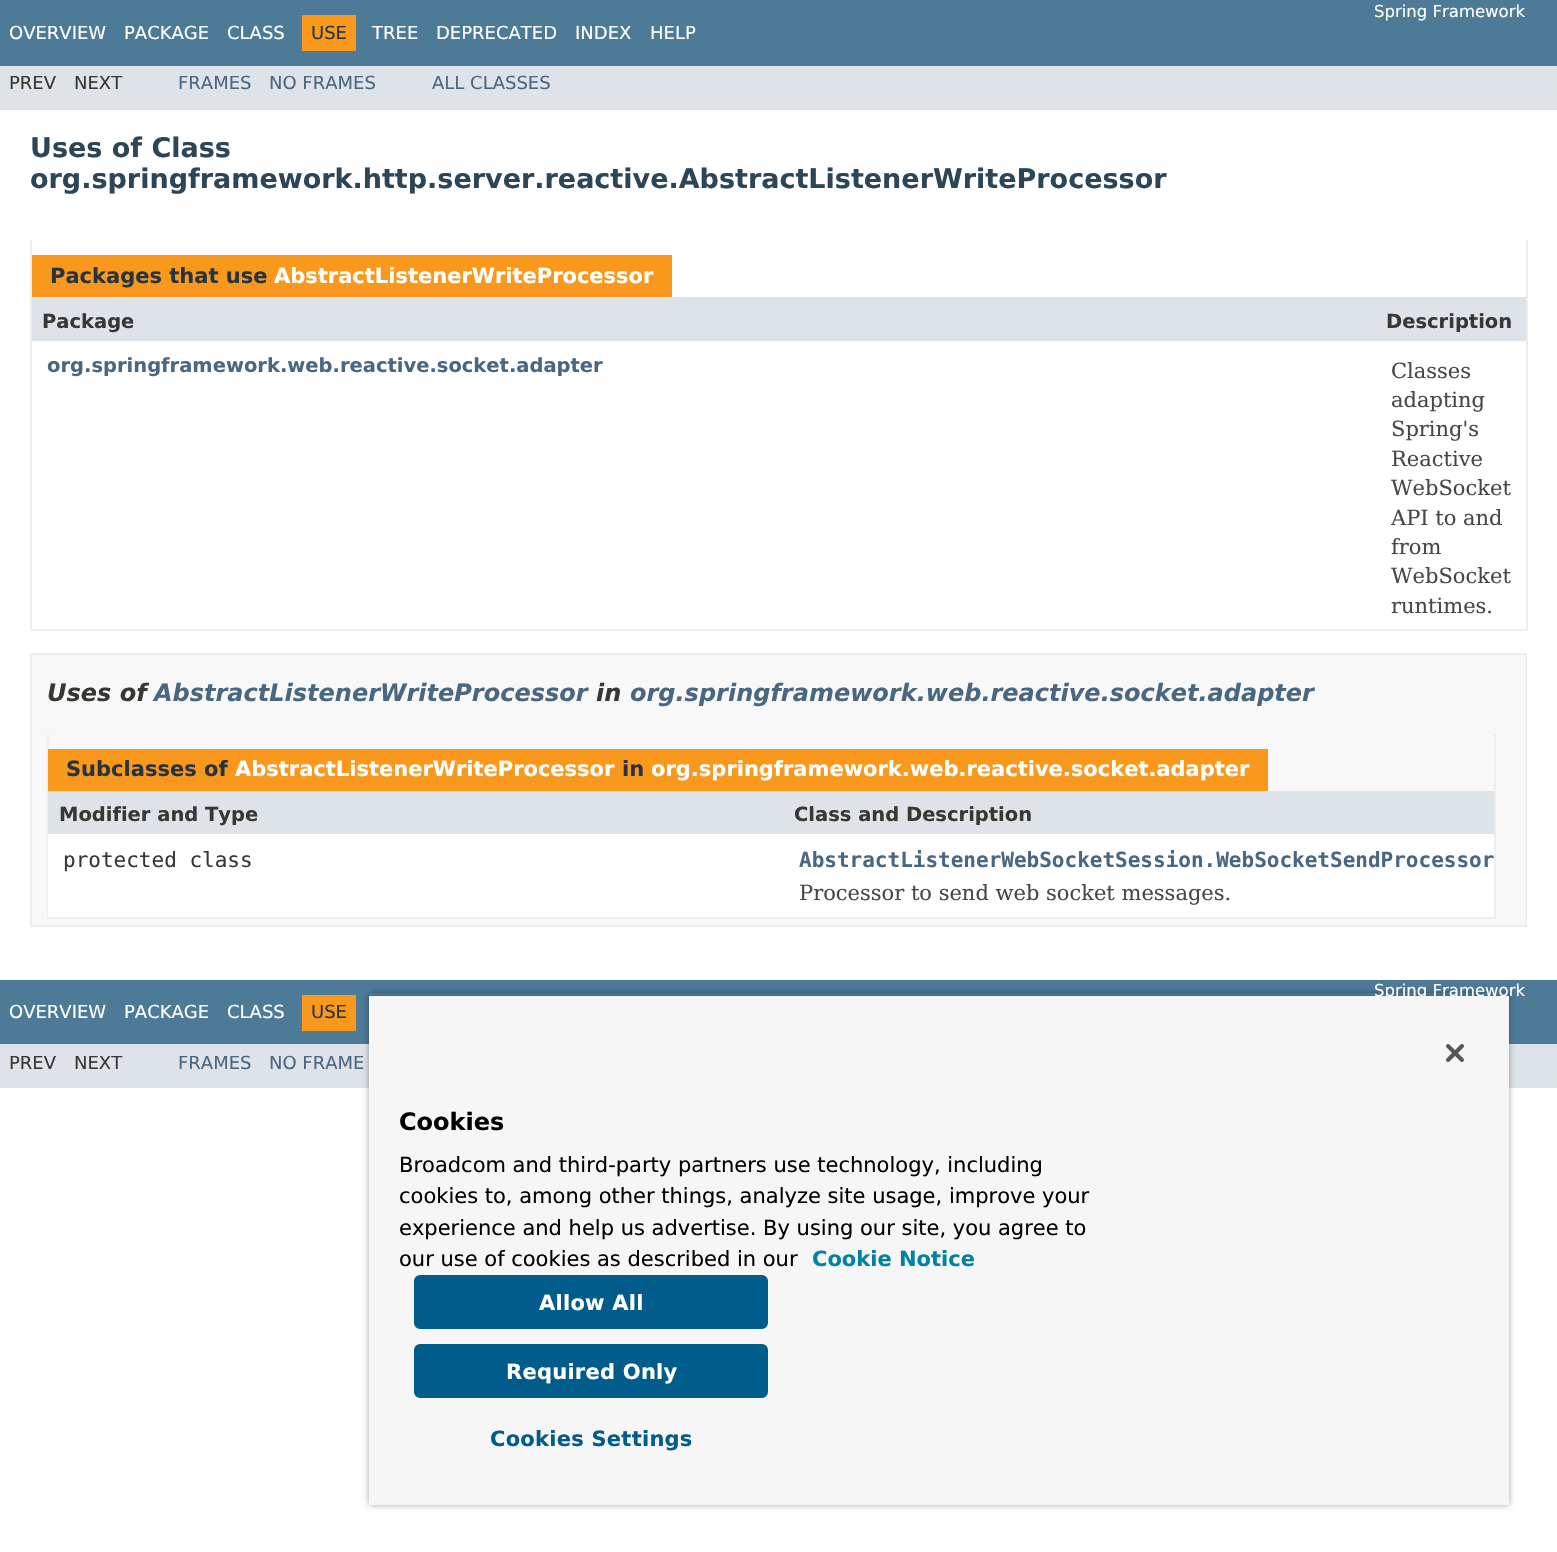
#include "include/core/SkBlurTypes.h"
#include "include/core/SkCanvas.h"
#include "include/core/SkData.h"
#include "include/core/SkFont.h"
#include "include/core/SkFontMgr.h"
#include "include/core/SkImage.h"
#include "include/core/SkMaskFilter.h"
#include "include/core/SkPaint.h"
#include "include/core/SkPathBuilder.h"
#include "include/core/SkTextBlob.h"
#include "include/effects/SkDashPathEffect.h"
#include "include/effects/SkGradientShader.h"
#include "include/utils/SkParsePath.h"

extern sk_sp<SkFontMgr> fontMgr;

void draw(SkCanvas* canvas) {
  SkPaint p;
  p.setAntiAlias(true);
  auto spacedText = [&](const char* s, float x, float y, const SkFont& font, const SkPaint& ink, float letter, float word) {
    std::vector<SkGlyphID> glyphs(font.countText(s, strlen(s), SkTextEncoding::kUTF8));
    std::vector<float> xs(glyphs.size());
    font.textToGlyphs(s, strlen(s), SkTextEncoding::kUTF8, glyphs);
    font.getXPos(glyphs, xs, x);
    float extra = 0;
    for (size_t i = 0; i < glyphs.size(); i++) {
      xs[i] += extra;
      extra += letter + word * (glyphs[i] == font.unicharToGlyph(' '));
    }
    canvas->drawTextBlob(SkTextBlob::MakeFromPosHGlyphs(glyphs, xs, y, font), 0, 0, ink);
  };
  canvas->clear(SK_ColorWHITE);
  p.setColor(SkColorSetRGB(77, 122, 151));
  canvas->drawRect(SkRect::MakeLTRB(0, 0, 1557, 66), p);
  p.setColor(SkColorSetRGB(248, 152, 29));
  canvas->drawRect(SkRect::MakeLTRB(302, 15, 356, 51), p);
  p.setColor(SkColorSetRGB(222, 227, 233));
  canvas->drawRect(SkRect::MakeLTRB(0, 66, 1557, 110), p);
  p.setColor(SkColorSetRGB(238, 238, 238));
  canvas->drawRect(SkRect::MakeLTRB(1526, 240, 1528, 630), p);
  canvas->drawRect(SkRect::MakeLTRB(30, 629, 1527, 631), p);
  canvas->drawRect(SkRect::MakeLTRB(30, 240, 32, 630), p);
  p.setColor(SkColorSetRGB(248, 152, 29));
  canvas->drawRect(SkRect::MakeLTRB(32, 255, 672, 297), p);
  p.setColor(SkColorSetRGB(222, 227, 233));
  canvas->drawRect(SkRect::MakeLTRB(32, 297, 1526, 341), p);
  p.setColor(SkColorSetRGB(248, 248, 248));
  canvas->drawRect(SkRect::MakeLTRB(31, 654, 1526, 926), p);
  p.setStyle(SkPaint::kStroke_Style);
  p.setStrokeWidth(2);
  p.setColor(SkColorSetRGB(237, 237, 237));
  canvas->drawRect(SkRect::MakeLTRB(31, 654, 1526, 926), p);
  p.setStyle(SkPaint::kFill_Style);
  p.setColor(SkColorSetRGB(238, 238, 238));
  canvas->drawRect(SkRect::MakeLTRB(1494, 734, 1496, 918), p);
  canvas->drawRect(SkRect::MakeLTRB(47, 917, 1496, 919), p);
  canvas->drawRect(SkRect::MakeLTRB(47, 734, 49, 918), p);
  p.setColor(SkColorSetRGB(248, 152, 29));
  canvas->drawRect(SkRect::MakeLTRB(48, 749, 1268, 791), p);
  p.setColor(SkColorSetRGB(222, 227, 233));
  canvas->drawRect(SkRect::MakeLTRB(48, 791, 1494, 834), p);
  p.setColor(SK_ColorWHITE);
  canvas->drawRect(SkRect::MakeLTRB(48, 834, 1494, 917), p);
  p.setColor(SkColorSetRGB(77, 122, 151));
  canvas->drawRect(SkRect::MakeLTRB(0, 980, 1557, 1044), p);
  p.setColor(SkColorSetRGB(248, 152, 29));
  canvas->drawRect(SkRect::MakeLTRB(302, 995, 356, 1031), p);
  p.setColor(SkColorSetRGB(222, 227, 233));
  canvas->drawRect(SkRect::MakeLTRB(0, 1044, 1557, 1088), p);
  canvas->save();
  canvas->clipPath(SkPathBuilder(SkPathFillType::kEvenOdd).moveTo(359, 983).lineTo(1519, 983).lineTo(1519, 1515).lineTo(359, 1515).close().moveTo(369, 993).lineTo(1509, 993).lineTo(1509, 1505).lineTo(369, 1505).close().detach(), true);
  p.setColor(SkColorSetARGB(89, 0, 0, 0));
  p.setMaskFilter(SkMaskFilter::MakeBlur(kNormal_SkBlurStyle, 3));
  canvas->drawRect(SkRect::MakeLTRB(369, 993, 1509, 1505), p);
  p.setMaskFilter(nullptr);
  canvas->restore();
  canvas->save();
  canvas->clipRect(SkRect::MakeLTRB(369, 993, 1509, 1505));
  p.setColor(SkColorSetARGB(51, 0, 0, 0));
  p.setMaskFilter(SkMaskFilter::MakeBlur(kNormal_SkBlurStyle, 3));
  canvas->drawRect(SkRect::MakeLTRB(369, 996, 1509, 1505), p);
  p.setMaskFilter(nullptr);
  canvas->restore();
  SkFont font1(fontMgr->matchFamilyStyle("DejaVu Sans", SkFontStyle::Normal()), 16.5f);
  font1.setSubpixel(true);
  p.setColor(SK_ColorWHITE);
  canvas->drawString("Spring Framework", 1374, 17, font1, p);
  SkFont font2(fontMgr->matchFamilyStyle("DejaVu Sans", SkFontStyle::Normal()), 18);
  font2.setSubpixel(true);
  canvas->drawString("OVERVIEW", 9, 39, font2, p);
  canvas->drawString("PACKAGE", 124, 39, font2, p);
  canvas->drawString("CLASS", 227, 39, font2, p);
  p.setColor(SkColorSetRGB(37, 52, 65));
  canvas->drawString("USE", 311, 39, font2, p);
  p.setColor(SK_ColorWHITE);
  canvas->drawString("TREE", 372, 39, font2, p);
  canvas->drawString("DEPRECATED", 436, 39, font2, p);
  canvas->drawString("INDEX", 575, 39, font2, p);
  canvas->drawString("HELP", 650, 39, font2, p);
  p.setColor(SkColorSetRGB(53, 56, 51));
  canvas->drawString("PREV", 9, 89, font2, p);
  canvas->drawString("NEXT", 74, 89, font2, p);
  p.setColor(SkColorSetRGB(74, 103, 130));
  canvas->drawString("FRAMES", 178, 89, font2, p);
  canvas->drawString("NO FRAMES", 269, 89, font2, p);
  canvas->drawString("ALL CLASSES", 432, 89, font2, p);
  SkFont font3(fontMgr->matchFamilyStyle("DejaVu Sans", SkFontStyle::Bold()), 27);
  font3.setSubpixel(true);
  p.setColor(SkColorSetRGB(44, 69, 87));
  canvas->drawString("Uses of Class", 30, 157, font3, p);
  canvas->drawString("org.springframework.http.server.reactive.AbstractListenerWriteProcessor", 30, 188, font3, p);
  SkFont font4(fontMgr->matchFamilyStyle("DejaVu Sans", SkFontStyle::Bold()), 21);
  font4.setSubpixel(true);
  p.setColor(SkColorSetRGB(37, 52, 65));
  canvas->drawString("Packages that use", 50, 283, font4, p);
  p.setColor(SK_ColorWHITE);
  canvas->drawString("AbstractListenerWriteProcessor", 274, 283, font4, p);
  SkFont font5(fontMgr->matchFamilyStyle("DejaVu Sans", SkFontStyle::Bold()), 19.5f);
  font5.setSubpixel(true);
  p.setColor(SkColorSetRGB(53, 56, 51));
  canvas->drawString("Package", 42, 328, font5, p);
  canvas->drawString("Description", 1386, 328, font5, p);
  p.setColor(SkColorSetRGB(74, 103, 130));
  canvas->drawString("org.springframework.web.reactive.socket.adapter", 47, 372, font5, p);
  SkFont font6(fontMgr->matchFamilyStyle("DejaVu Serif", SkFontStyle::Normal()), 21);
  font6.setSubpixel(true);
  p.setColor(SkColorSetRGB(71, 71, 71));
  canvas->drawString("Classes", 1391, 378, font6, p);
  canvas->drawString("adapting", 1391, 407, font6, p);
  canvas->drawString("Spring's", 1391, 436, font6, p);
  canvas->drawString("Reactive", 1391, 466, font6, p);
  canvas->drawString("WebSocket", 1391, 495, font6, p);
  canvas->drawString("API to and", 1391, 525, font6, p);
  canvas->drawString("from", 1391, 554, font6, p);
  canvas->drawString("WebSocket", 1391, 583, font6, p);
  canvas->drawString("runtimes.", 1391, 613, font6, p);
  SkFont font7(fontMgr->matchFamilyStyle("DejaVu Sans", SkFontStyle::BoldItalic()), 24);
  font7.setSubpixel(true);
  p.setColor(SkColorSetRGB(53, 56, 51));
  canvas->drawString("Uses of", 47, 701, font7, p);
  p.setColor(SkColorSetRGB(74, 103, 130));
  canvas->drawString("AbstractListenerWriteProcessor", 154, 701, font7, p);
  p.setColor(SkColorSetRGB(53, 56, 51));
  canvas->drawString("in", 596, 701, font7, p);
  p.setColor(SkColorSetRGB(74, 103, 130));
  canvas->drawString("org.springframework.web.reactive.socket.adapter", 630, 701, font7, p);
  p.setColor(SkColorSetRGB(37, 52, 65));
  canvas->drawString("Subclasses of", 66, 776, font4, p);
  p.setColor(SK_ColorWHITE);
  canvas->drawString("AbstractListenerWriteProcessor", 235, 776, font4, p);
  p.setColor(SkColorSetRGB(37, 52, 65));
  canvas->drawString("in", 622, 776, font4, p);
  p.setColor(SK_ColorWHITE);
  canvas->drawString("org.springframework.web.reactive.socket.adapter", 651, 776, font4, p);
  p.setColor(SkColorSetRGB(53, 56, 51));
  canvas->drawString("Modifier and Type", 59, 821, font5, p);
  canvas->drawString("Class and Description", 794, 821, font5, p);
  SkFont font8(fontMgr->matchFamilyStyle("DejaVu Sans Mono", SkFontStyle::Normal()), 21);
  font8.setSubpixel(true);
  canvas->drawString("protected class", 63, 867, font8, p);
  SkFont font9(fontMgr->matchFamilyStyle("DejaVu Sans Mono", SkFontStyle::Bold()), 21);
  font9.setSubpixel(true);
  p.setColor(SkColorSetRGB(74, 103, 130));
  canvas->drawString("AbstractListenerWebSocketSession.WebSocketSendProcessor", 799, 867, font9, p);
  p.setColor(SkColorSetRGB(71, 71, 71));
  canvas->drawString("Processor to send web socket messages.", 799, 900, font6, p);
  p.setColor(SK_ColorWHITE);
  canvas->drawString("Spring Framework", 1374, 996, font1, p);
  canvas->drawString("OVERVIEW", 9, 1018, font2, p);
  canvas->drawString("PACKAGE", 124, 1018, font2, p);
  canvas->drawString("CLASS", 227, 1018, font2, p);
  p.setColor(SkColorSetRGB(37, 52, 65));
  canvas->drawString("USE", 311, 1018, font2, p);
  p.setColor(SkColorSetRGB(53, 56, 51));
  canvas->drawString("PREV", 9, 1069, font2, p);
  canvas->drawString("NEXT", 74, 1069, font2, p);
  p.setColor(SkColorSetRGB(74, 103, 130));
  canvas->drawString("FRAMES", 178, 1069, font2, p);
  canvas->drawString("NO FRAME", 269, 1069, font2, p);
  p.setColor(SkColorSetRGB(246, 246, 246));
  canvas->drawRect(SkRect::MakeLTRB(369, 996, 1509, 1505), p);
  canvas->drawImageRect(SkImages::DeferredFromEncodedData(SkData::MakeFromFileName("images/1.png")), SkRect::MakeLTRB(1446, 1044, 1464, 1062), SkSamplingOptions());
  SkFont font10(fontMgr->matchFamilyStyle("DejaVu Sans", SkFontStyle::Bold()), 24);
  font10.setSubpixel(true);
  p.setColor(SK_ColorBLACK);
  canvas->drawString("Cookies", 399, 1130, font10, p);
  SkFont font11(fontMgr->matchFamilyStyle("DejaVu Sans", SkFontStyle::Normal()), 21);
  font11.setSubpixel(true);
  canvas->drawString("Broadcom and third-party partners use technology, including", 399, 1172, font11, p);
  canvas->drawString("cookies to, among other things, analyze site usage, improve your", 399, 1203, font11, p);
  canvas->drawString("experience and help us advertise. By using our site, you agree to", 399, 1235, font11, p);
  canvas->drawString("our use of cookies as described in our", 399, 1266, font11, p);
  p.setColor(SkColorSetRGB(0, 131, 160));
  canvas->drawString("Cookie Notice", 812, 1266, font4, p);
  p.setColor(SkColorSetRGB(0, 92, 138));
  canvas->drawRoundRect(SkRect::MakeLTRB(415, 1276, 767, 1328), 5, 5, p);
  p.setStyle(SkPaint::kStroke_Style);
  canvas->drawRoundRect(SkRect::MakeLTRB(415, 1276, 767, 1328), 5, 5, p);
  p.setStyle(SkPaint::kFill_Style);
  p.setColor(SK_ColorWHITE);
  spacedText("Allow All", 539, 1310, font4, p, 0.25f, 0);
  p.setColor(SkColorSetRGB(0, 92, 138));
  canvas->drawRoundRect(SkRect::MakeLTRB(415, 1345, 767, 1397), 5, 5, p);
  p.setStyle(SkPaint::kStroke_Style);
  canvas->drawRoundRect(SkRect::MakeLTRB(415, 1345, 767, 1397), 5, 5, p);
  p.setStyle(SkPaint::kFill_Style);
  p.setColor(SK_ColorWHITE);
  spacedText("Required Only", 506, 1379, font4, p, 0.25f, 0);
  p.setColor(SkColorSetRGB(0, 92, 138));
  spacedText("Cookies Settings", 490, 1446, font4, p, 0.25f, 0);
}
